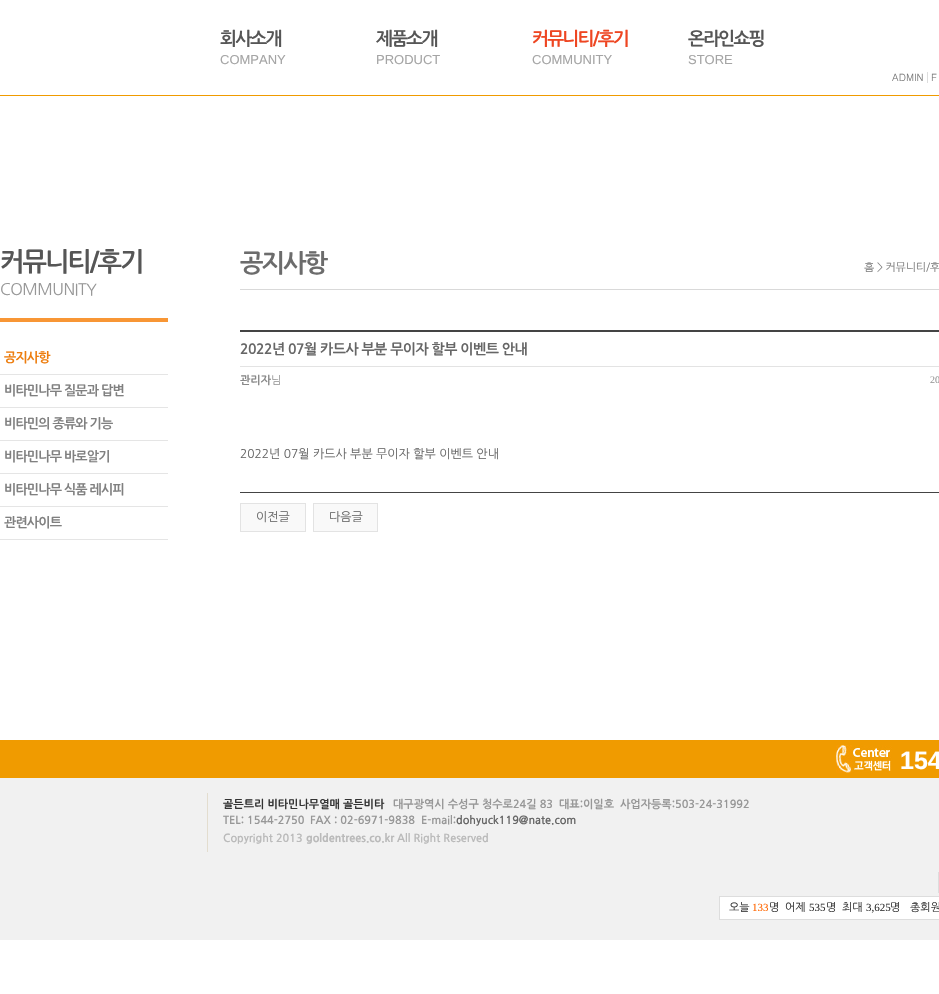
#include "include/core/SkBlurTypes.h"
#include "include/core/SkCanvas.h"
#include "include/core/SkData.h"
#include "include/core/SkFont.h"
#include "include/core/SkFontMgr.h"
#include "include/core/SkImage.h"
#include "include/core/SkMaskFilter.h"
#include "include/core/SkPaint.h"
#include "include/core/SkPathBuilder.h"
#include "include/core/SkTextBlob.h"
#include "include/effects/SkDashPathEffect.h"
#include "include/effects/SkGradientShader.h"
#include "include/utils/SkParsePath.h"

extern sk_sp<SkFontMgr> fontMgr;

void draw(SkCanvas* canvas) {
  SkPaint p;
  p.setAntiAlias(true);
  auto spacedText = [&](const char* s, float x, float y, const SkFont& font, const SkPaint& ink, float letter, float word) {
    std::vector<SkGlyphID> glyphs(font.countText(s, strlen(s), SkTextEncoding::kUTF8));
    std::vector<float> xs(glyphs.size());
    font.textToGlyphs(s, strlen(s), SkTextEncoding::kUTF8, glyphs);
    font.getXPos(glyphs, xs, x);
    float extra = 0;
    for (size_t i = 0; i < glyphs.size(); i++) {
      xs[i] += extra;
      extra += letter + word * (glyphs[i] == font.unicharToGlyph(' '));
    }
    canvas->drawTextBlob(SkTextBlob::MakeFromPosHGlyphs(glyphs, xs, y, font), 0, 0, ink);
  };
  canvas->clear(SK_ColorWHITE);
  p.setColor(SkColorSetRGB(240, 155, 0));
  canvas->drawRect(SkRect::MakeLTRB(0, 95, 939, 96), p);
  p.setColor(SkColorSetRGB(221, 221, 221));
  canvas->drawRect(SkRect::MakeLTRB(927, 72, 928, 83), p);
  p.setColor(SkColorSetRGB(248, 150, 53));
  canvas->drawRect(SkRect::MakeLTRB(0, 318, 168, 322), p);
  p.setColor(SkColorSetRGB(229, 229, 229));
  canvas->drawRect(SkRect::MakeLTRB(0, 374, 168, 375), p);
  canvas->drawRect(SkRect::MakeLTRB(0, 407, 168, 408), p);
  canvas->drawRect(SkRect::MakeLTRB(0, 440, 168, 441), p);
  canvas->drawRect(SkRect::MakeLTRB(0, 473, 168, 474), p);
  canvas->drawRect(SkRect::MakeLTRB(0, 506, 168, 507), p);
  canvas->drawRect(SkRect::MakeLTRB(0, 539, 168, 540), p);
  p.setColor(SkColorSetRGB(217, 217, 217));
  canvas->drawRect(SkRect::MakeLTRB(240, 289, 939, 290), p);
  p.setColor(SkColorSetRGB(68, 68, 68));
  canvas->drawRect(SkRect::MakeLTRB(240, 330, 939, 332), p);
  p.setColor(SkColorSetRGB(227, 227, 227));
  canvas->drawRect(SkRect::MakeLTRB(240, 366, 939, 367), p);
  p.setColor(SkColorSetRGB(68, 68, 68));
  canvas->drawRect(SkRect::MakeLTRB(240, 492, 939, 493), p);
  p.setColor(SkColorSetRGB(249, 249, 249));
  canvas->drawRect(SkRect::MakeLTRB(240.5f, 503.5f, 305.5f, 531.5f), p);
  p.setStyle(SkPaint::kStroke_Style);
  p.setStrokeWidth(1);
  p.setColor(SkColorSetRGB(227, 227, 227));
  canvas->drawRect(SkRect::MakeLTRB(240.5f, 503.5f, 305.5f, 531.5f), p);
  p.setStyle(SkPaint::kFill_Style);
  p.setColor(SkColorSetRGB(249, 249, 249));
  canvas->drawRect(SkRect::MakeLTRB(313.5f, 503.5f, 377.5f, 531.5f), p);
  p.setStyle(SkPaint::kStroke_Style);
  p.setColor(SkColorSetRGB(227, 227, 227));
  canvas->drawRect(SkRect::MakeLTRB(313.5f, 503.5f, 377.5f, 531.5f), p);
  p.setStyle(SkPaint::kFill_Style);
  p.setColor(SkColorSetRGB(240, 155, 0));
  canvas->drawRect(SkRect::MakeLTRB(0, 740, 939, 778), p);
  canvas->drawImageRect(SkImages::DeferredFromEncodedData(SkData::MakeFromFileName("images/1.png")), SkRect::MakeLTRB(836, 745, 892, 773), SkSamplingOptions());
  p.setColor(SkColorSetRGB(241, 241, 241));
  canvas->drawRect(SkRect::MakeLTRB(0, 778, 939, 940), p);
  p.setColor(SkColorSetRGB(227, 221, 207));
  canvas->drawRect(SkRect::MakeLTRB(207, 793, 208, 852), p);
  p.setColor(SkColorSetRGB(221, 221, 221));
  canvas->drawRect(SkRect::MakeLTRB(938, 872, 939, 893), p);
  p.setColor(SK_ColorWHITE);
  canvas->drawRect(SkRect::MakeLTRB(719.5f, 896.5f, 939.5f, 919.5f), p);
  p.setStyle(SkPaint::kStroke_Style);
  p.setColor(SkColorSetRGB(221, 221, 221));
  canvas->drawRect(SkRect::MakeLTRB(719.5f, 896.5f, 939.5f, 919.5f), p);
  SkFont font1(fontMgr->matchFamilyStyle("NanumGothic", SkFontStyle::Bold()), 18);
  font1.setSubpixel(true);
  p.setStyle(SkPaint::kFill_Style);
  p.setColor(SkColorSetRGB(86, 86, 86));
  spacedText("회사소개", 220, 45, font1, p, -1.75f, 0);
  SkFont font2(fontMgr->matchFamilyStyle("Liberation Sans", SkFontStyle::Normal()), 13);
  font2.setSubpixel(true);
  p.setColor(SkColorSetRGB(165, 165, 165));
  canvas->drawString("COMPANY", 220, 64, font2, p);
  p.setColor(SkColorSetRGB(86, 86, 86));
  spacedText("제품소개", 376, 45, font1, p, -1.75f, 0);
  p.setColor(SkColorSetRGB(165, 165, 165));
  canvas->drawString("PRODUCT", 376, 64, font2, p);
  p.setColor(SkColorSetRGB(238, 70, 34));
  spacedText("커뮤니티/후기", 532, 45, font1, p, -1.75f, 0);
  p.setColor(SkColorSetRGB(165, 165, 165));
  canvas->drawString("COMMUNITY", 532, 64, font2, p);
  p.setColor(SkColorSetRGB(86, 86, 86));
  spacedText("온라인쇼핑", 688, 45, font1, p, -1.75f, 0);
  p.setColor(SkColorSetRGB(165, 165, 165));
  canvas->drawString("STORE", 688, 64, font2, p);
  SkFont font3(fontMgr->matchFamilyStyle("Dotum", SkFontStyle::Normal()), 10);
  font3.setSubpixel(true);
  p.setColor(SkColorSetRGB(119, 119, 119));
  canvas->drawString("ADMIN", 892, 81, font3, p);
  canvas->drawString("F", 931, 81, font3, p);
  SkFont font4(fontMgr->matchFamilyStyle("NanumGothic", SkFontStyle::Bold()), 26);
  font4.setSubpixel(true);
  p.setColor(SkColorSetRGB(86, 86, 86));
  spacedText("커뮤니티/후기", 0, 271, font4, p, -2, 0);
  SkFont font5(fontMgr->matchFamilyStyle("NanumGothic", SkFontStyle::Normal()), 16);
  font5.setSubpixel(true);
  p.setColor(SkColorSetRGB(151, 151, 151));
  spacedText("COMMUNITY", 0, 295, font5, p, -0.5f, 0);
  SkFont font6(fontMgr->matchFamilyStyle("NanumGothic", SkFontStyle::Bold()), 13);
  font6.setSubpixel(true);
  p.setColor(SkColorSetRGB(237, 125, 14));
  spacedText("공지사항", 4, 362, font6, p, -0.8f, 0);
  p.setColor(SkColorSetRGB(128, 128, 128));
  spacedText("비타민나무 질문과 답변", 4, 395, font6, p, -0.8f, 0);
  spacedText("비타민의 종류와 기능", 4, 428, font6, p, -0.8f, 0);
  spacedText("비타민나무 바로알기", 4, 461, font6, p, -0.8f, 0);
  spacedText("비타민나무 식품 레시피", 4, 494, font6, p, -0.8f, 0);
  spacedText("관련사이트", 4, 527, font6, p, -0.8f, 0);
  SkFont font7(fontMgr->matchFamilyStyle("NanumGothic", SkFontStyle::Bold()), 25);
  font7.setSubpixel(true);
  p.setColor(SkColorSetRGB(108, 108, 108));
  spacedText("공지사항", 240, 272, font7, p, -2, 0);
  SkFont font8(fontMgr->matchFamilyStyle("NanumGothic", SkFontStyle::Normal()), 11);
  font8.setSubpixel(true);
  p.setColor(SkColorSetRGB(128, 128, 128));
  spacedText("홈 > 커뮤니티/후", 864, 271, font8, p, -0.25f, 0);
  SkFont font9(fontMgr->matchFamilyStyle("NanumGothic", SkFontStyle::Bold()), 14);
  font9.setSubpixel(true);
  p.setColor(SkColorSetRGB(102, 102, 102));
  spacedText("2022년 07월 카드사 부분 무이자 할부 이벤트 안내", 240, 354, font9, p, -0.5f, 0);
  SkFont font10(fontMgr->matchFamilyStyle("NanumGothic", SkFontStyle::Bold()), 11);
  font10.setSubpixel(true);
  p.setColor(SkColorSetRGB(136, 136, 136));
  canvas->drawString("관리자", 240, 384, font10, p);
  p.setColor(SkColorSetRGB(151, 151, 151));
  canvas->drawString("님", 271, 384, font8, p);
  SkFont font11(fontMgr->matchFamilyStyle("Liberation Serif", SkFontStyle::Normal()), 10);
  font11.setSubpixel(true);
  canvas->drawString("20", 930, 383, font11, p);
  SkFont font12(fontMgr->matchFamilyStyle("NanumGothic", SkFontStyle::Normal()), 12);
  font12.setSubpixel(true);
  p.setColor(SkColorSetRGB(102, 102, 102));
  canvas->drawString("2022년 07월 카드사 부분 무이자 할부 이벤트 안내", 240, 458, font12, p);
  canvas->drawString("이전글", 256, 521, font12, p);
  canvas->drawString("다음글", 329, 521, font12, p);
  SkFont font13(fontMgr->matchFamilyStyle("Liberation Sans", SkFontStyle::Bold()), 25);
  font13.setSubpixel(true);
  p.setColor(SK_ColorWHITE);
  canvas->drawString("154", 900, 769, font13, p);
  p.setColor(SkColorSetRGB(51, 51, 51));
  canvas->drawString("골든트리 비타민나무열매 골든비타", 223, 808, font10, p);
  p.setColor(SkColorSetRGB(151, 151, 151));
  canvas->drawString("대구광역시 수성구 청수로24길 83", 393, 808, font10, p);
  canvas->drawString("대표:이일호", 559, 808, font10, p);
  canvas->drawString("사업자등록:503-24-31992", 620, 808, font10, p);
  canvas->drawString("TEL: 1544-2750", 223, 824, font10, p);
  canvas->drawString("FAX : 02-6971-9838", 310, 824, font10, p);
  canvas->drawString("E-mail:", 421, 824, font10, p);
  p.setColor(SkColorSetRGB(102, 102, 102));
  canvas->drawString("dohyuck119@nate.com", 456, 824, font10, p);
  p.setColor(SkColorSetRGB(186, 186, 186));
  canvas->drawString("Copyright 2013", 223, 842, font10, p);
  SkFont font14(fontMgr->matchFamilyStyle("NanumGothic", SkFontStyle(800, SkFontStyle::kNormal_Width, SkFontStyle::kUpright_Slant)), 11);
  font14.setSubpixel(true);
  canvas->drawString("goldentrees.co.kr", 306, 842, font14, p);
  canvas->drawString("All Right Reserved", 397, 842, font10, p);
  p.setColor(SkColorSetRGB(51, 51, 51));
  canvas->drawString("오늘", 729, 911, font8, p);
  SkFont font15(fontMgr->matchFamilyStyle("Liberation Serif", SkFontStyle::Normal()), 11);
  font15.setSubpixel(true);
  p.setColor(SkColorSetRGB(255, 102, 0));
  canvas->drawString("133", 752, 911, font15, p);
  p.setColor(SkColorSetRGB(51, 51, 51));
  canvas->drawString("명", 769, 911, font8, p);
  canvas->drawString("어제", 785, 911, font8, p);
  canvas->drawString("535", 809, 911, font15, p);
  canvas->drawString("명", 826, 911, font8, p);
  canvas->drawString("최대", 842, 911, font8, p);
  canvas->drawString("3,625", 866, 911, font15, p);
  canvas->drawString("명", 890, 911, font8, p);
  canvas->drawString("총회원", 910, 911, font8, p);
}
